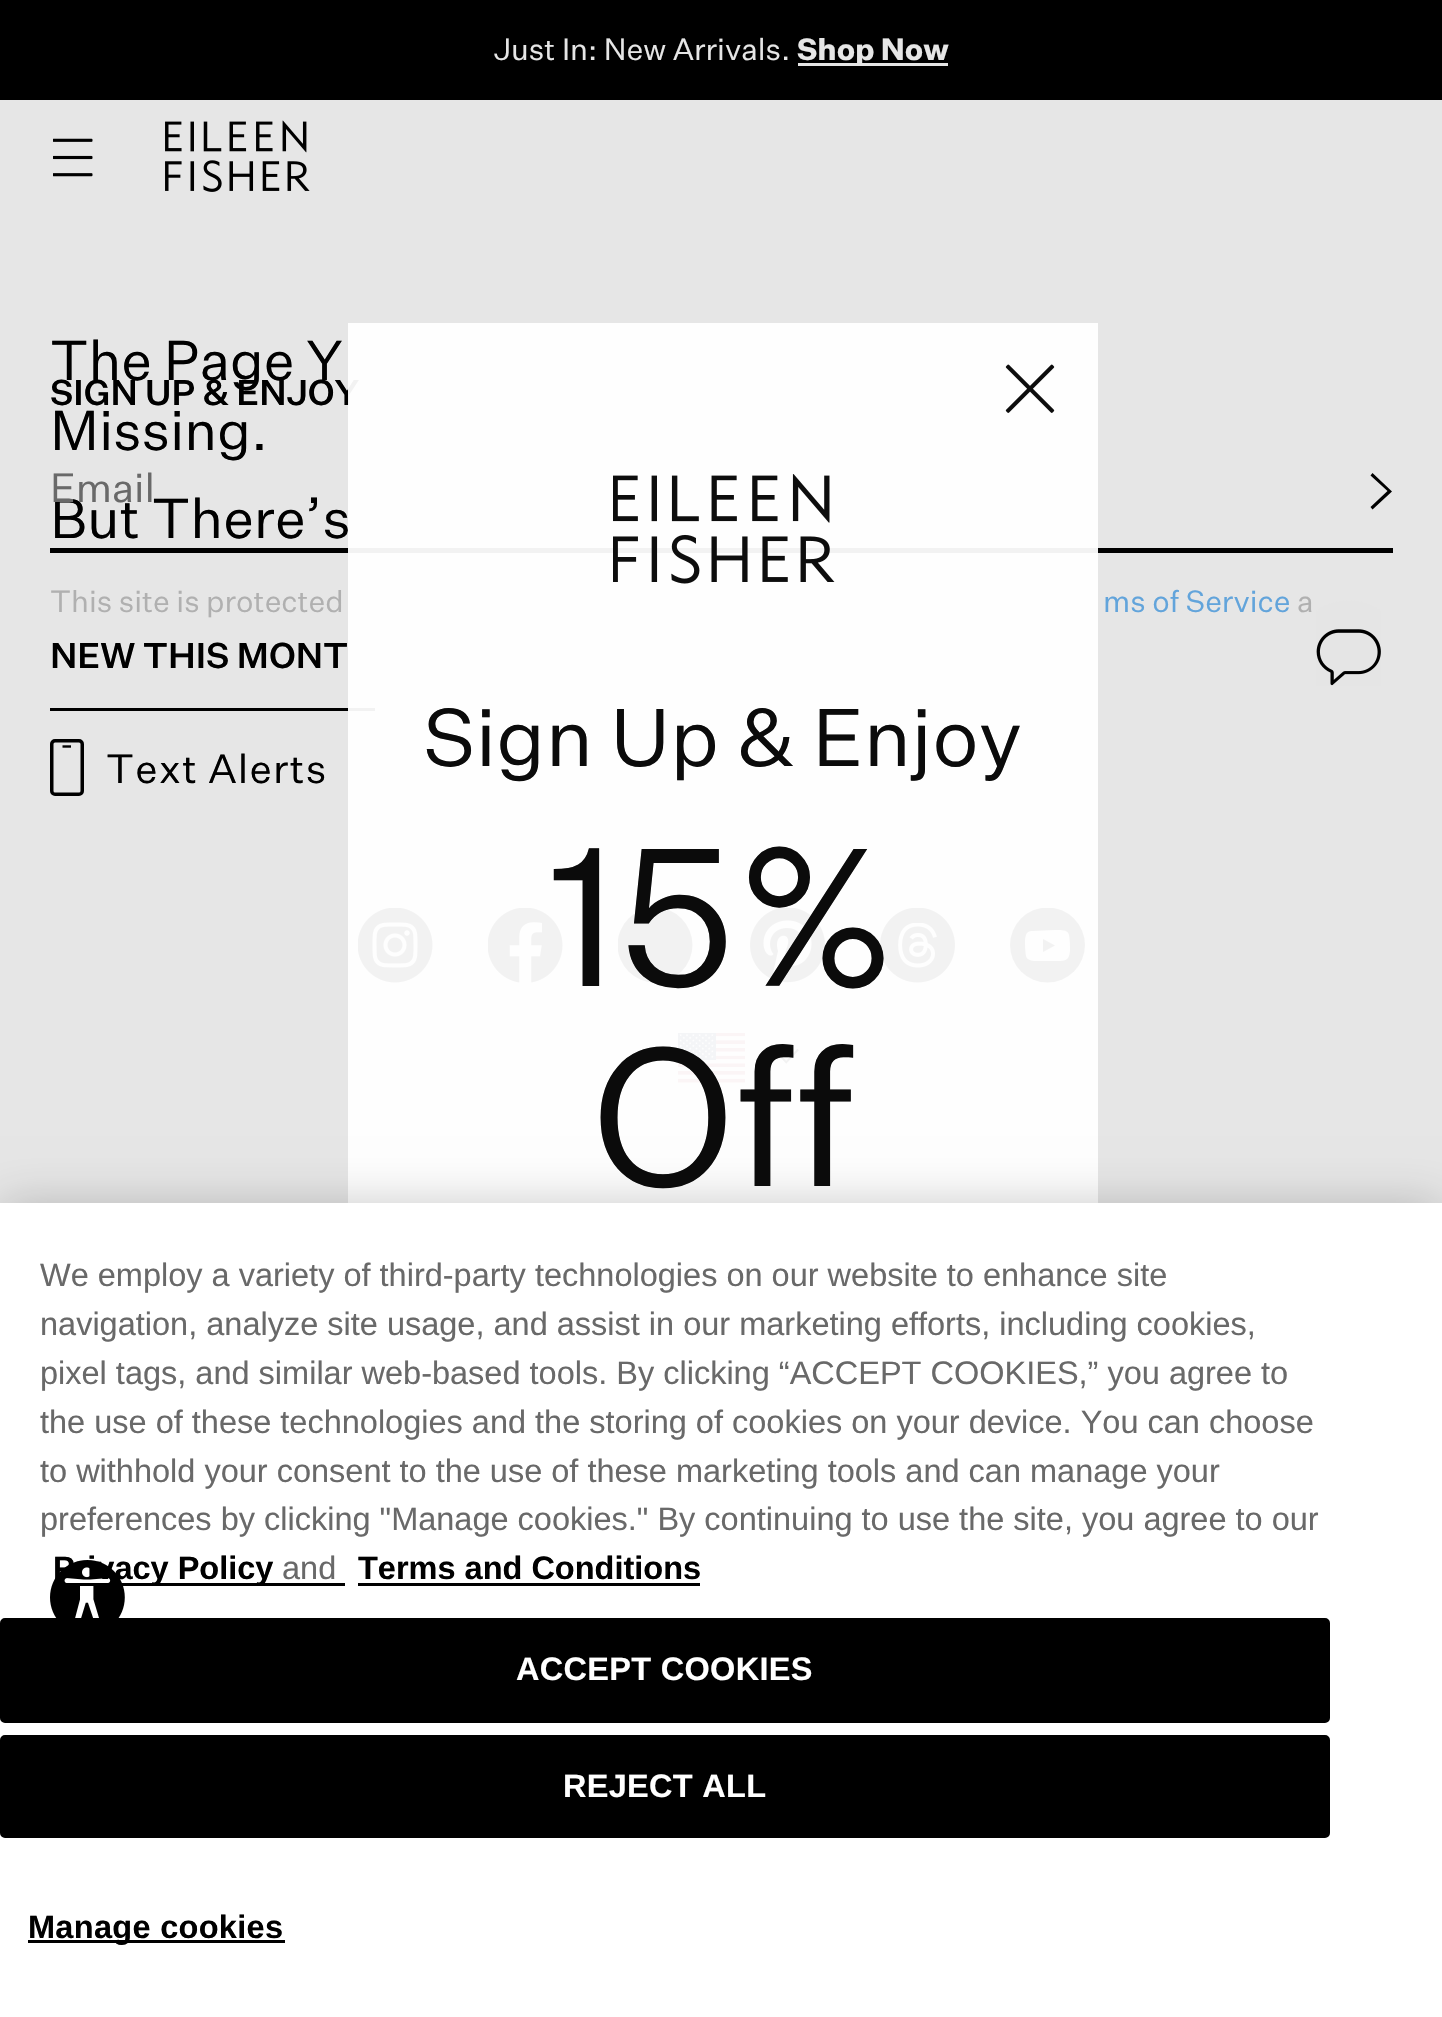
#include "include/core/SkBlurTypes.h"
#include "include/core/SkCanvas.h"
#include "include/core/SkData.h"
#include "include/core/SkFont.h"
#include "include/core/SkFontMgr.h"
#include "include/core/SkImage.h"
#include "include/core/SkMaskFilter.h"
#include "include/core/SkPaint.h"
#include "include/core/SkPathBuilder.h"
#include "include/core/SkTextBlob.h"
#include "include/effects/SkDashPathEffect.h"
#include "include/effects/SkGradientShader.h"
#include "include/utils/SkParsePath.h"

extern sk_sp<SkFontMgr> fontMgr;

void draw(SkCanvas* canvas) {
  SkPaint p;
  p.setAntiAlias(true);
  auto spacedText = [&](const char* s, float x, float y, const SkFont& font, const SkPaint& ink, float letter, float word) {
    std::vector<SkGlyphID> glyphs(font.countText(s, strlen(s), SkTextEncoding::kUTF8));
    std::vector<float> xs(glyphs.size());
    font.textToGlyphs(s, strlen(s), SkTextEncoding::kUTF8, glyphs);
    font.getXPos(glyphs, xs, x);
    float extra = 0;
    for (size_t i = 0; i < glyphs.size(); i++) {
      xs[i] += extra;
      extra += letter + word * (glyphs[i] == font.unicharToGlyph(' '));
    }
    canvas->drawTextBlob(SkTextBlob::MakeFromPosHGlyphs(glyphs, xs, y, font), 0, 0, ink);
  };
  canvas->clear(SkColorSetRGB(230, 230, 230));
  p.setColor(SK_ColorBLACK);
  canvas->drawRect(SkRect::MakeLTRB(0, 0, 1442, 100), p);
  p.setColor(SkColorSetRGB(230, 230, 230));
  canvas->drawRect(SkRect::MakeLTRB(798, 63, 948, 66), p);
  canvas->drawImageRect(SkImages::DeferredFromEncodedData(SkData::MakeFromFileName("images/1.png")), SkRect::MakeLTRB(53, 138, 93, 177), SkSamplingOptions());
  canvas->drawImageRect(SkImages::DeferredFromEncodedData(SkData::MakeFromFileName("images/2.png")), SkRect::MakeLTRB(165, 120, 310, 192), SkSamplingOptions());
  p.setColor(SK_ColorBLACK);
  canvas->drawRect(SkRect::MakeLTRB(50, 708, 375, 711), p);
  canvas->drawRect(SkRect::MakeLTRB(50, 548, 1393, 553), p);
  canvas->drawPath(SkPathBuilder(SkPathFillType::kEvenOdd).moveTo(1387.5f, 491).lineTo(1370.5f, 507).lineTo(1372.5f, 509.5f).lineTo(1392, 491.5f).lineTo(1372.5f, 473).lineTo(1370.5f, 475.5f).close().detach(), p);
  p.setStyle(SkPaint::kStroke_Style);
  p.setStrokeWidth(3.5f);
  canvas->drawRoundRect(SkRect::MakeLTRB(51.75f, 740.75f, 82.25f, 794.25f), 3.25f, 3.25f, p);
  p.setStrokeWidth(2.4f);
  canvas->drawPath(SkPathBuilder().moveTo(62.5f, 746.5f).lineTo(71, 746.5f).detach(), p);
  canvas->drawImageRect(SkImages::DeferredFromEncodedData(SkData::MakeFromFileName("images/3.png")), SkRect::MakeLTRB(358, 908, 433, 983), SkSamplingOptions());
  canvas->drawImageRect(SkImages::DeferredFromEncodedData(SkData::MakeFromFileName("images/4.png")), SkRect::MakeLTRB(488, 908, 563, 983), SkSamplingOptions());
  canvas->save();
  canvas->clipRect(SkRect::MakeLTRB(618, 908, 693, 983));
  p.setStyle(SkPaint::kFill_Style);
  canvas->drawCircle(655, 945, 37.5f, p);
  canvas->restore();
  canvas->drawImageRect(SkImages::DeferredFromEncodedData(SkData::MakeFromFileName("images/5.png")), SkRect::MakeLTRB(750, 908, 825, 983), SkSamplingOptions());
  canvas->drawImageRect(SkImages::DeferredFromEncodedData(SkData::MakeFromFileName("images/6.png")), SkRect::MakeLTRB(880, 908, 955, 983), SkSamplingOptions());
  canvas->save();
  canvas->clipRect(SkRect::MakeLTRB(1010, 908, 1085, 983));
  canvas->drawCircle(1047.5f, 945, 37.5f, p);
  canvas->restore();
  p.setColor(SkColorSetRGB(223, 223, 223));
  canvas->drawPath(SkPathBuilder().moveTo(1069, 935).cubicTo(1068, 929, 1059, 930, 1055, 930).lineTo(1033, 931).cubicTo(1027, 931, 1026, 933, 1025, 940).cubicTo(1025, 945, 1025, 951, 1026, 956).cubicTo(1027, 962, 1038, 961, 1042, 961).lineTo(1053, 961).cubicTo(1064, 961, 1069, 962, 1070, 951).cubicTo(1070, 946, 1070, 940, 1069, 935).close().detach(), p);
  p.setColor(SK_ColorBLACK);
  canvas->drawPath(SkPathBuilder().moveTo(1055, 945.5f).lineTo(1043, 939).lineTo(1043, 952).close().detach(), p);
  canvas->drawImageRect(SkImages::DeferredFromEncodedData(SkData::MakeFromFileName("images/7.png")), SkRect::MakeLTRB(678, 1033, 745, 1083), SkSamplingOptions());
  canvas->drawImageRect(SkImages::DeferredFromEncodedData(SkData::MakeFromFileName("images/8.png")), SkRect::MakeLTRB(773, 1048, 799, 1064), SkSamplingOptions());
  canvas->drawImageRect(SkImages::DeferredFromEncodedData(SkData::MakeFromFileName("images/9.png")), SkRect::MakeLTRB(1316, 600, 1381, 686), SkSamplingOptions());
  SkFont font1(fontMgr->matchFamilyStyle("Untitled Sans", SkFontStyle::Normal()), 30);
  font1.setSubpixel(true);
  p.setColor(SkColorSetRGB(230, 230, 230));
  canvas->drawString("Just In: New Arrivals.", 494, 60, font1, p);
  SkFont font2(fontMgr->matchFamilyStyle("Untitled Sans", SkFontStyle::Bold()), 30);
  font2.setSubpixel(true);
  canvas->drawString("Shop Now", 797, 60, font2, p);
  SkFont font3(fontMgr->matchFamilyStyle("Untitled Sans", SkFontStyle::Normal()), 55);
  font3.setSubpixel(true);
  p.setColor(SK_ColorBLACK);
  canvas->drawString("Missing.", 50, 450, font3, p);
  canvas->drawString("But There’s", 50, 538, font3, p);
  SkFont font4(fontMgr->matchFamilyStyle("Untitled Sans", SkFontStyle(500, SkFontStyle::kNormal_Width, SkFontStyle::kUpright_Slant)), 35);
  font4.setSubpixel(true);
  canvas->drawString("NEW THIS MONT", 50, 668, font4, p);
  canvas->drawString("SIGN UP & ENJOY", 50, 405, font4, p);
  canvas->drawString("The Page Y", 50, 380, font3, p);
  SkFont font5(fontMgr->matchFamilyStyle("Untitled Sans", SkFontStyle::Normal()), 40);
  font5.setSubpixel(true);
  p.setColor(SkColorSetRGB(105, 105, 105));
  canvas->drawString("Email", 50, 502, font5, p);
  p.setColor(SkColorSetRGB(176, 176, 176));
  canvas->drawString("This site is protected", 50, 612, font1, p);
  p.setColor(SkColorSetRGB(98, 164, 219));
  canvas->drawString("ms of Service", 1103, 612, font1, p);
  p.setColor(SkColorSetRGB(176, 176, 176));
  canvas->drawString("a", 1297, 612, font1, p);
  p.setColor(SK_ColorBLACK);
  spacedText("Text Alerts", 106, 783, font5, p, 1.25f, 0);
  p.setColor(SkColorSetARGB(242, 255, 255, 255));
  canvas->drawRect(SkRect::MakeLTRB(348, 323, 1098, 1203), p);
  canvas->drawImageRect(SkImages::DeferredFromEncodedData(SkData::MakeFromFileName("images/10.png")), SkRect::MakeLTRB(1005, 364, 1055, 413), SkSamplingOptions());
  canvas->drawImageRect(SkImages::DeferredFromEncodedData(SkData::MakeFromFileName("images/11.png")), SkRect::MakeLTRB(613, 474, 835, 584), SkSamplingOptions());
  SkFont font6(fontMgr->matchFamilyStyle("Untitled Sans", SkFontStyle::Normal()), 80);
  font6.setSubpixel(true);
  p.setColor(SkColorSetRGB(11, 11, 11));
  canvas->drawString("Sign Up & Enjoy", 423, 766, font6, p);
  SkFont font7(fontMgr->matchFamilyStyle("Untitled Sans", SkFontStyle::Normal()), 192);
  font7.setSubpixel(true);
  canvas->drawString("15%", 549, 986, font7, p);
  canvas->drawString("Off", 591, 1186, font7, p);
  p.setColor(SkColorSetARGB(51, 0, 0, 0));
  p.setMaskFilter(SkMaskFilter::MakeBlur(kNormal_SkBlurStyle, 22.5f));
  canvas->drawRect(SkRect::MakeLTRB(0, 1203, 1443, 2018), p);
  p.setMaskFilter(nullptr);
  p.setColor(SK_ColorWHITE);
  canvas->drawRect(SkRect::MakeLTRB(0, 1203, 1442, 2017), p);
  SkFont font8(fontMgr->matchFamilyStyle("Liberation Sans", SkFontStyle::Normal()), 32.5f);
  font8.setSubpixel(true);
  p.setColor(SkColorSetRGB(105, 105, 105));
  canvas->drawString("We employ a variety of third-party technologies on our website to enhance site", 40, 1286, font8, p);
  canvas->drawString("navigation, analyze site usage, and assist in our marketing efforts, including cookies,", 40, 1335, font8, p);
  canvas->drawString("pixel tags, and similar web-based tools. By clicking “ACCEPT COOKIES,” you agree to", 40, 1384, font8, p);
  canvas->drawString("the use of these technologies and the storing of cookies on your device. You can choose", 40, 1433, font8, p);
  canvas->drawString("to withhold your consent to the use of these marketing tools and can manage your", 40, 1482, font8, p);
  canvas->drawString("preferences by clicking \"Manage cookies.\" By continuing to use the site, you agree to our", 40, 1530, font8, p);
  p.setColor(SK_ColorBLACK);
  canvas->drawRect(SkRect::MakeLTRB(66, 1583, 345, 1586), p);
  SkFont font9(fontMgr->matchFamilyStyle("Liberation Sans", SkFontStyle::Bold()), 32.5f);
  font9.setSubpixel(true);
  canvas->drawString("Privacy Policy", 53, 1579, font9, p);
  canvas->drawImageRect(SkImages::DeferredFromEncodedData(SkData::MakeFromFileName("images/12.png")), SkRect::MakeLTRB(50, 1560, 125, 1618), SkSamplingOptions());
  p.setColor(SkColorSetRGB(105, 105, 105));
  canvas->drawString("and", 282, 1579, font8, p);
  p.setColor(SK_ColorBLACK);
  canvas->drawString("Terms and Conditions", 358, 1579, font9, p);
  canvas->drawRect(SkRect::MakeLTRB(358, 1583, 700, 1586), p);
  canvas->drawRoundRect(SkRect::MakeLTRB(1.5f, 1619.5f, 1328.5f, 1721.5f), 3.5f, 3.5f, p);
  p.setStyle(SkPaint::kStroke_Style);
  p.setStrokeWidth(3);
  canvas->drawRoundRect(SkRect::MakeLTRB(1.5f, 1619.5f, 1328.5f, 1721.5f), 3.5f, 3.5f, p);
  p.setStyle(SkPaint::kFill_Style);
  p.setColor(SK_ColorWHITE);
  spacedText("ACCEPT COOKIES", 516, 1680, font9, p, 0.3f, 0);
  p.setColor(SK_ColorBLACK);
  canvas->drawRoundRect(SkRect::MakeLTRB(1.5f, 1736.5f, 1328.5f, 1836.5f), 3.5f, 3.5f, p);
  p.setStyle(SkPaint::kStroke_Style);
  canvas->drawRoundRect(SkRect::MakeLTRB(1.5f, 1736.5f, 1328.5f, 1836.5f), 3.5f, 3.5f, p);
  p.setStyle(SkPaint::kFill_Style);
  p.setColor(SK_ColorWHITE);
  spacedText("REJECT ALL", 563, 1797, font9, p, 0.3f, 0);
  p.setColor(SK_ColorBLACK);
  canvas->drawRect(SkRect::MakeLTRB(28, 1940, 285, 1943), p);
  spacedText("Manage cookies", 28, 1938, font9, p, 0.3f, 0);
}
